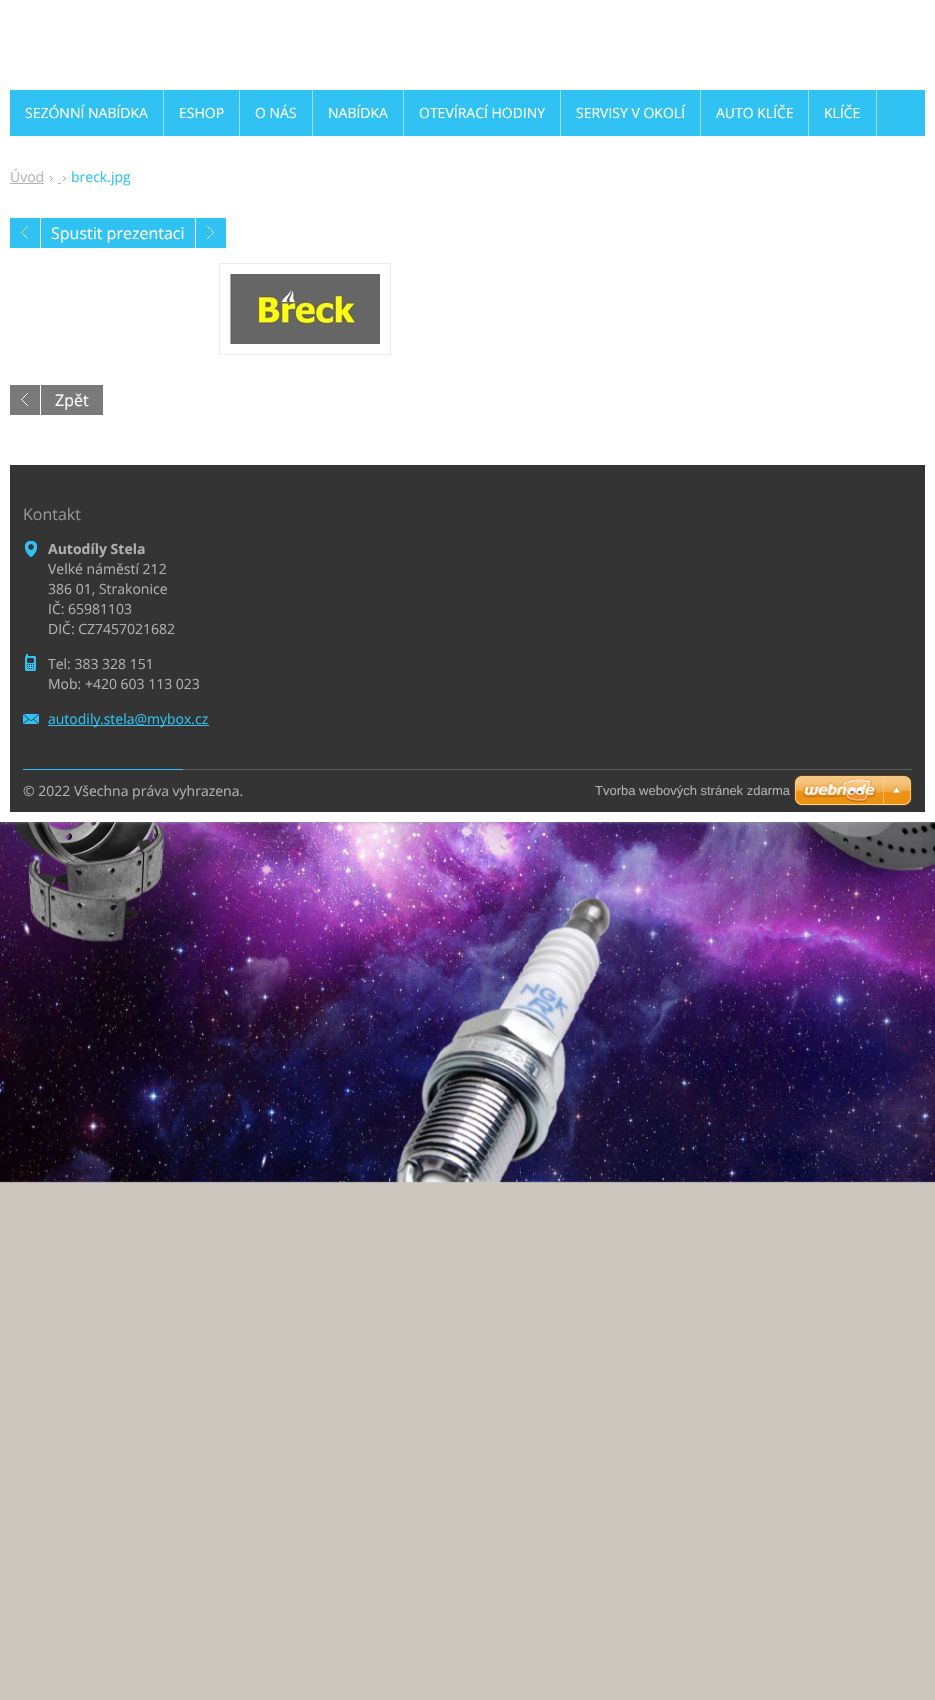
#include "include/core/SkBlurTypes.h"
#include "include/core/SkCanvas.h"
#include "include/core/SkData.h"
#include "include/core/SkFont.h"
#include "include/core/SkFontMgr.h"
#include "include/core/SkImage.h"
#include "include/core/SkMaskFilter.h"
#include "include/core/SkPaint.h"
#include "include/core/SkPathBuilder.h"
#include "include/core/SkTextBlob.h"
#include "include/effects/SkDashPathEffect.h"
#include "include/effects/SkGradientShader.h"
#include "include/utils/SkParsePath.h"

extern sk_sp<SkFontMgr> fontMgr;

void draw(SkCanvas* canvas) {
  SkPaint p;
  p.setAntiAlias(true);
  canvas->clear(SkColorSetRGB(204, 200, 192));
  canvas->drawImageRect(SkImages::DeferredFromEncodedData(SkData::MakeFromFileName("images/1.png")), SkRect::MakeLTRB(0, 822, 935, 1183), SkSamplingOptions());
  p.setColor(SkColorSetARGB(191, 152, 152, 152));
  p.setMaskFilter(SkMaskFilter::MakeBlur(kNormal_SkBlurStyle, 2));
  canvas->drawRect(SkRect::MakeLTRB(0, 0, 935, 822), p);
  p.setMaskFilter(nullptr);
  p.setColor(SK_ColorWHITE);
  canvas->drawRect(SkRect::MakeLTRB(0, 0, 935, 822), p);
  p.setColor(SkColorSetRGB(47, 194, 242));
  canvas->drawRect(SkRect::MakeLTRB(10, 90, 925, 136), p);
  p.setColor(SkColorSetRGB(151, 225, 249));
  canvas->drawRect(SkRect::MakeLTRB(163, 90, 164, 136), p);
  canvas->drawRect(SkRect::MakeLTRB(239, 90, 240, 136), p);
  canvas->drawRect(SkRect::MakeLTRB(312, 90, 313, 136), p);
  canvas->drawRect(SkRect::MakeLTRB(403, 90, 404, 136), p);
  canvas->drawRect(SkRect::MakeLTRB(560, 90, 561, 136), p);
  canvas->drawRect(SkRect::MakeLTRB(700, 90, 701, 136), p);
  canvas->drawRect(SkRect::MakeLTRB(808, 90, 809, 136), p);
  canvas->drawRect(SkRect::MakeLTRB(876, 90, 877, 136), p);
  p.setColor(SkColorSetRGB(181, 181, 181));
  canvas->drawRect(SkRect::MakeLTRB(10, 183, 44, 184), p);
  canvas->drawImageRect(SkImages::DeferredFromEncodedData(SkData::MakeFromFileName("images/2.png")), SkRect::MakeLTRB(50, 176, 53, 181), SkSamplingOptions());
  canvas->drawImageRect(SkImages::DeferredFromEncodedData(SkData::MakeFromFileName("images/2.png")), SkRect::MakeLTRB(63, 176, 66, 181), SkSamplingOptions());
  canvas->drawRect(SkRect::MakeLTRB(58, 183, 61, 184), p);
  p.setColor(SkColorSetRGB(47, 194, 242));
  canvas->drawRect(SkRect::MakeLTRB(10, 218, 40, 248), p);
  canvas->drawImageRect(SkImages::DeferredFromEncodedData(SkData::MakeFromFileName("images/3.png")), SkRect::MakeLTRB(21, 226, 28, 239), SkSamplingOptions());
  canvas->drawRect(SkRect::MakeLTRB(41, 218, 195, 248), p);
  canvas->drawRect(SkRect::MakeLTRB(196, 218, 226, 248), p);
  canvas->drawImageRect(SkImages::DeferredFromEncodedData(SkData::MakeFromFileName("images/4.png")), SkRect::MakeLTRB(207, 226, 214, 239), SkSamplingOptions());
  p.setStyle(SkPaint::kStroke_Style);
  p.setStrokeWidth(1);
  p.setColor(SkColorSetRGB(236, 236, 236));
  canvas->drawRect(SkRect::MakeLTRB(219.5f, 263.5f, 390.5f, 354.5f), p);
  canvas->drawImageRect(SkImages::DeferredFromEncodedData(SkData::MakeFromFileName("images/5.png")), SkRect::MakeLTRB(230, 274, 380, 344), SkSamplingOptions());
  p.setStyle(SkPaint::kFill_Style);
  p.setColor(SkColorSetRGB(122, 122, 122));
  canvas->drawRect(SkRect::MakeLTRB(10, 385, 103, 415), p);
  canvas->drawImageRect(SkImages::DeferredFromEncodedData(SkData::MakeFromFileName("images/6.png")), SkRect::MakeLTRB(21, 393, 28, 406), SkSamplingOptions());
  p.setColor(SK_ColorWHITE);
  canvas->drawRect(SkRect::MakeLTRB(40, 385, 41, 415), p);
  p.setColor(SkColorSetRGB(52, 52, 52));
  canvas->drawRect(SkRect::MakeLTRB(10, 465, 925, 812), p);
  canvas->drawImageRect(SkImages::DeferredFromEncodedData(SkData::MakeFromFileName("images/7.png")), SkRect::MakeLTRB(25, 541, 37, 557), SkSamplingOptions());
  canvas->drawImageRect(SkImages::DeferredFromEncodedData(SkData::MakeFromFileName("images/8.png")), SkRect::MakeLTRB(25, 654, 36, 671), SkSamplingOptions());
  canvas->drawImageRect(SkImages::DeferredFromEncodedData(SkData::MakeFromFileName("images/9.png")), SkRect::MakeLTRB(23, 714, 39, 724), SkSamplingOptions());
  p.setColor(SkColorSetRGB(47, 194, 242));
  canvas->drawRect(SkRect::MakeLTRB(48, 725, 100, 726), p);
  canvas->drawRect(SkRect::MakeLTRB(100, 725, 209, 726), p);
  p.setColor(SkColorSetRGB(95, 95, 95));
  canvas->drawRect(SkRect::MakeLTRB(183, 769, 912, 770), p);
  p.setColor(SkColorSetRGB(47, 194, 242));
  canvas->drawRect(SkRect::MakeLTRB(23, 769, 183, 770), p);
  canvas->drawImageRect(SkImages::DeferredFromEncodedData(SkData::MakeFromFileName("images/10.png")), SkRect::MakeLTRB(794, 775, 912, 806), SkSamplingOptions());
  SkFont font1(fontMgr->matchFamilyStyle("Open Sans", SkFontStyle::Normal()), 14);
  font1.setSubpixel(true);
  p.setColor(SK_ColorWHITE);
  canvas->drawString("SEZÓNNÍ NABÍDKA", 25, 118, font1, p);
  canvas->drawString("ESHOP", 179, 118, font1, p);
  canvas->drawString("O NÁS", 255, 118, font1, p);
  canvas->drawString("NABÍDKA", 328, 118, font1, p);
  canvas->drawString("OTEVÍRACÍ HODINY", 419, 118, font1, p);
  canvas->drawString("SERVISY V OKOLÍ", 576, 118, font1, p);
  canvas->drawString("AUTO KLÍČE", 716, 118, font1, p);
  canvas->drawString("KLÍČE", 824, 118, font1, p);
  p.setColor(SkColorSetRGB(181, 181, 181));
  canvas->drawString("Úvod", 10, 182, font1, p);
  p.setColor(SkColorSetRGB(47, 194, 242));
  canvas->drawString("breck.jpg", 71, 182, font1, p);
  SkFont font2(fontMgr->matchFamilyStyle("Open Sans", SkFontStyle::Normal()), 16);
  font2.setSubpixel(true);
  p.setColor(SK_ColorWHITE);
  canvas->drawString("Spustit prezentaci", 51, 239, font2, p);
  canvas->drawString("Zpět", 55, 406, font2, p);
  p.setColor(SkColorSetRGB(149, 149, 149));
  canvas->drawString("Kontakt", 23, 520, font2, p);
  SkFont font3(fontMgr->matchFamilyStyle("Open Sans", SkFontStyle::Bold()), 14);
  font3.setSubpixel(true);
  p.setColor(SkColorSetRGB(176, 175, 175));
  canvas->drawString("Autodíly Stela", 48, 554, font3, p);
  canvas->drawString("Velké náměstí 212", 48, 574, font1, p);
  canvas->drawString("386 01, Strakonice", 48, 594, font1, p);
  canvas->drawString("IČ: 65981103", 48, 614, font1, p);
  canvas->drawString("DIČ: CZ7457021682", 48, 634, font1, p);
  canvas->drawString("Tel: 383 328 151", 48, 669, font1, p);
  canvas->drawString("Mob: +420 603 113 023", 48, 689, font1, p);
  p.setColor(SkColorSetRGB(47, 194, 242));
  canvas->drawString("autodily", 48, 724, font1, p);
  canvas->drawString(".stela@mybox.cz", 100, 724, font1, p);
  p.setColor(SkColorSetRGB(176, 175, 175));
  canvas->drawString("© 2022 Všechna práva vyhrazena.", 23, 796, font1, p);
  SkFont font4(fontMgr->matchFamilyStyle("Liberation Sans", SkFontStyle::Normal()), 13);
  font4.setSubpixel(true);
  canvas->drawString("Tvorba webových stránek zdarma", 595, 795, font4, p);
}
